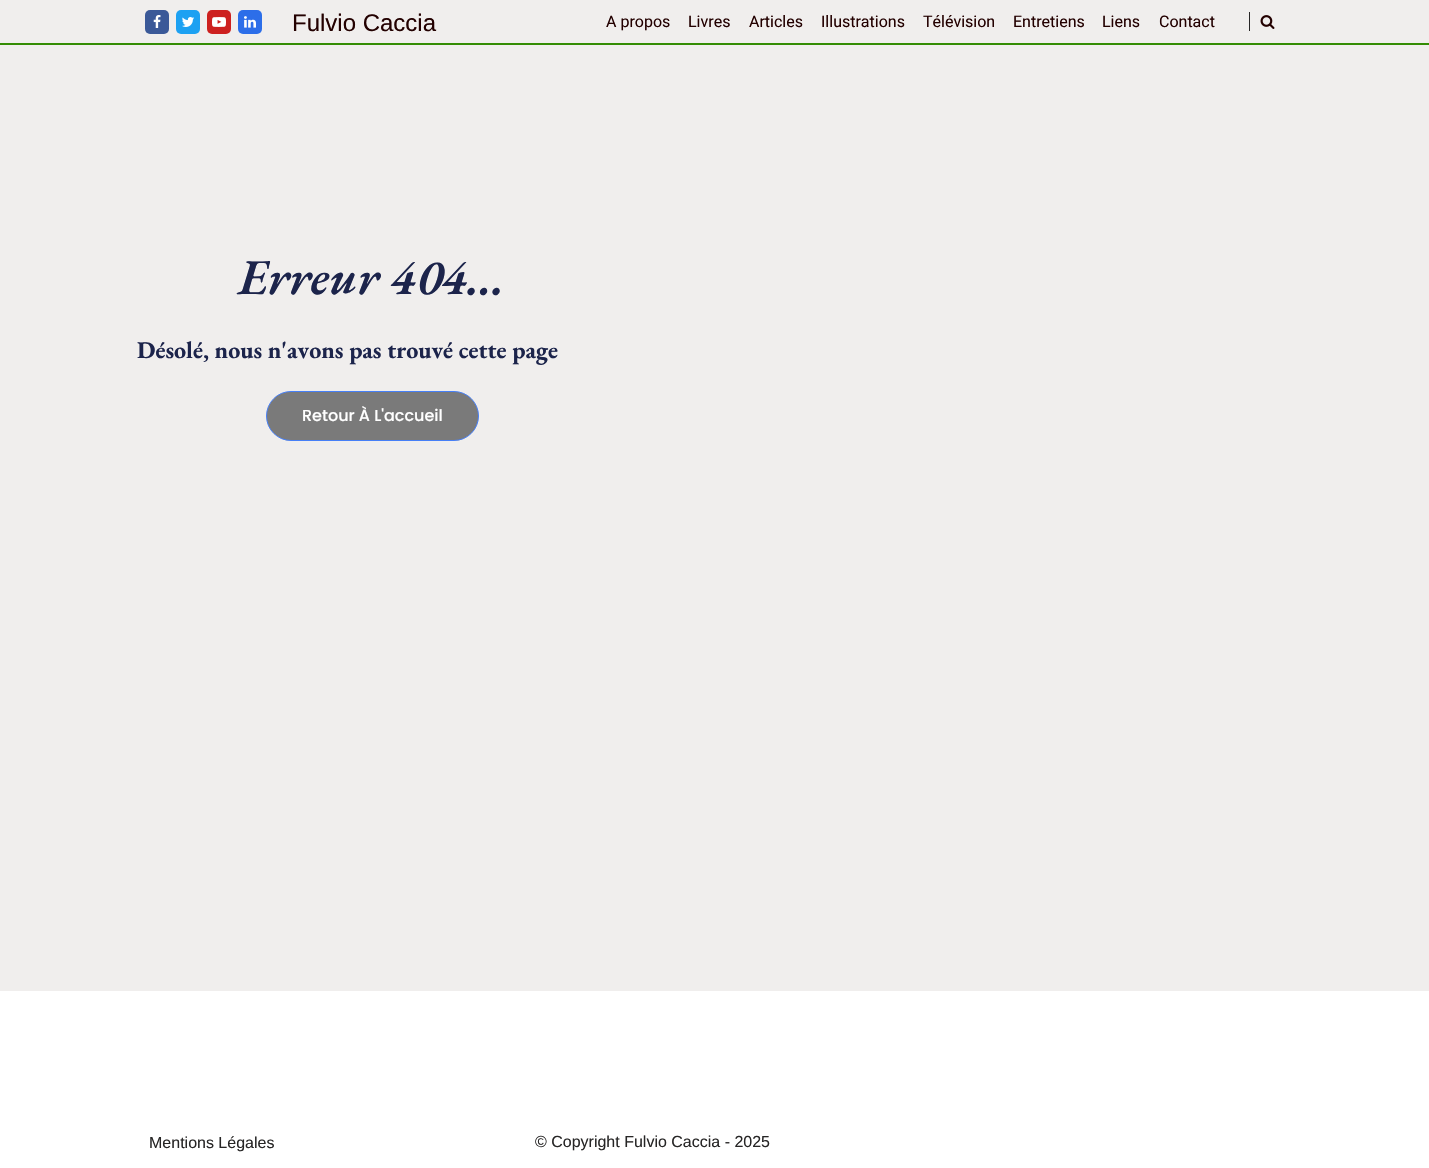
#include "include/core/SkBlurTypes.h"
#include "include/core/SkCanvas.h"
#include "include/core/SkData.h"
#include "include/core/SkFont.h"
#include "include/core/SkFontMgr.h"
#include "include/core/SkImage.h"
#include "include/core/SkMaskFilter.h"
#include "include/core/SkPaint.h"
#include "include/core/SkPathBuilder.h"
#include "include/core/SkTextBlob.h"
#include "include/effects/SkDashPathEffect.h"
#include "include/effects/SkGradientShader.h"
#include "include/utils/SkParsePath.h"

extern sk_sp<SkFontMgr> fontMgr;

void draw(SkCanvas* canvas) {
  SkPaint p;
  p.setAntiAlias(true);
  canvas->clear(SK_ColorWHITE);
  p.setColor(SkColorSetRGB(240, 238, 237));
  canvas->drawRect(SkRect::MakeLTRB(0, 0, 1429, 43), p);
  p.setColor(SkColorSetRGB(52, 140, 4));
  canvas->drawRect(SkRect::MakeLTRB(0, 43, 1429, 45), p);
  p.setColor(SkColorSetRGB(59, 89, 152));
  canvas->drawRoundRect(SkRect::MakeLTRB(145, 10, 169, 34), 5, 5, p);
  canvas->drawImageRect(SkImages::DeferredFromEncodedData(SkData::MakeFromFileName("images/1.png")), SkRect::MakeLTRB(153, 15, 161, 28), SkSamplingOptions());
  p.setColor(SkColorSetRGB(29, 161, 242));
  canvas->drawRoundRect(SkRect::MakeLTRB(176, 10, 200, 34), 5, 5, p);
  canvas->drawImageRect(SkImages::DeferredFromEncodedData(SkData::MakeFromFileName("images/2.png")), SkRect::MakeLTRB(182, 17, 194, 27), SkSamplingOptions());
  p.setColor(SkColorSetRGB(205, 32, 31));
  canvas->drawRoundRect(SkRect::MakeLTRB(207, 10, 231, 34), 5, 5, p);
  canvas->drawImageRect(SkImages::DeferredFromEncodedData(SkData::MakeFromFileName("images/3.png")), SkRect::MakeLTRB(212, 17, 226, 27), SkSamplingOptions());
  p.setColor(SkColorSetRGB(44, 110, 233));
  canvas->drawRoundRect(SkRect::MakeLTRB(238, 10, 262, 34), 5, 5, p);
  canvas->drawImageRect(SkImages::DeferredFromEncodedData(SkData::MakeFromFileName("images/4.png")), SkRect::MakeLTRB(244, 16, 256, 28), SkSamplingOptions());
  p.setColor(SkColorSetRGB(39, 38, 38));
  canvas->drawRect(SkRect::MakeLTRB(1249, 12, 1250, 31), p);
  canvas->drawImageRect(SkImages::DeferredFromEncodedData(SkData::MakeFromFileName("images/5.png")), SkRect::MakeLTRB(1260, 15, 1275, 29), SkSamplingOptions());
  p.setColor(SkColorSetRGB(240, 238, 237));
  canvas->drawRect(SkRect::MakeLTRB(0, 45, 1429, 991), p);
  p.setColor(SkColorSetRGB(122, 122, 122));
  canvas->drawRoundRect(SkRect::MakeLTRB(266.5f, 391.5f, 478.5f, 440.5f), 24.5f, 24.5f, p);
  p.setStyle(SkPaint::kStroke_Style);
  p.setStrokeWidth(1);
  p.setColor(SkColorSetRGB(70, 127, 247));
  canvas->drawRoundRect(SkRect::MakeLTRB(266.5f, 391.5f, 478.5f, 440.5f), 24.5f, 24.5f, p);
  SkFont font1(fontMgr->matchFamilyStyle("Liberation Sans", SkFontStyle::Normal()), 24);
  font1.setSubpixel(true);
  p.setStyle(SkPaint::kFill_Style);
  p.setColor(SkColorSetRGB(35, 0, 0));
  canvas->drawString("Fulvio Caccia", 292, 31, font1, p);
  SkFont font2(fontMgr->matchFamilyStyle("Roboto", SkFontStyle::Normal()), 16);
  font2.setSubpixel(true);
  canvas->drawString("A propos", 606, 27, font2, p);
  canvas->drawString("Livres", 688, 27, font2, p);
  canvas->drawString("Articles", 749, 27, font2, p);
  canvas->drawString("Illustrations", 821, 27, font2, p);
  canvas->drawString("Télévision", 923, 27, font2, p);
  canvas->drawString("Entretiens", 1013, 27, font2, p);
  canvas->drawString("Liens", 1102, 27, font2, p);
  canvas->drawString("Contact", 1159, 27, font2, p);
  SkFont font3(fontMgr->matchFamilyStyle("EB Garamond", SkFontStyle(600, SkFontStyle::kNormal_Width, SkFontStyle::kItalic_Slant)), 50);
  font3.setSubpixel(true);
  p.setColor(SkColorSetRGB(28, 36, 75));
  canvas->drawString("Erreur 404...", 239, 294, font3, p);
  SkFont font4(fontMgr->matchFamilyStyle("EB Garamond", SkFontStyle::Bold()), 24);
  font4.setSubpixel(true);
  canvas->drawString("Désolé, nous n'avons pas trouvé cette page", 137, 358, font4, p);
  SkFont font5(fontMgr->matchFamilyStyle("Poppins", SkFontStyle(500, SkFontStyle::kNormal_Width, SkFontStyle::kUpright_Slant)), 16);
  font5.setSubpixel(true);
  p.setColor(SK_ColorWHITE);
  canvas->drawString("Retour À L'accueil", 302, 421, font5, p);
  SkFont font6(fontMgr->matchFamilyStyle("Liberation Sans", SkFontStyle::Normal()), 16);
  font6.setSubpixel(true);
  p.setColor(SkColorSetRGB(39, 38, 38));
  canvas->drawString("Mentions Légales", 149, 1148, font6, p);
  canvas->drawString("© Copyright Fulvio Caccia - 2025", 535, 1147, font6, p);
}
